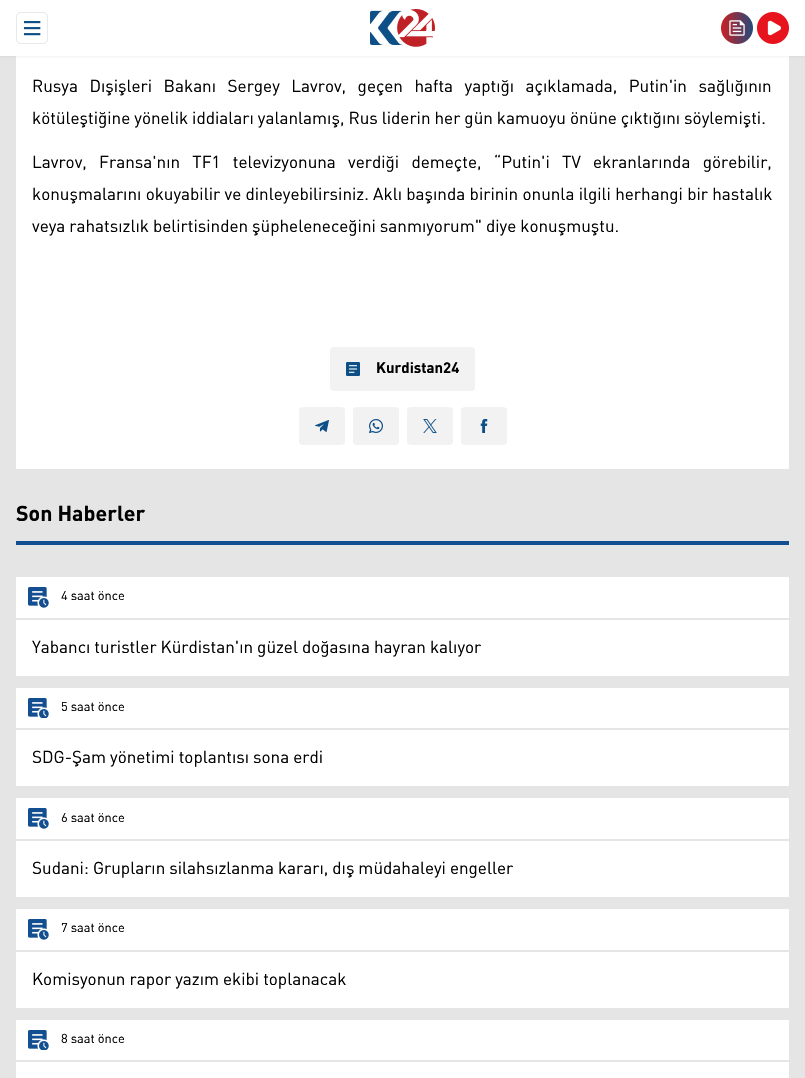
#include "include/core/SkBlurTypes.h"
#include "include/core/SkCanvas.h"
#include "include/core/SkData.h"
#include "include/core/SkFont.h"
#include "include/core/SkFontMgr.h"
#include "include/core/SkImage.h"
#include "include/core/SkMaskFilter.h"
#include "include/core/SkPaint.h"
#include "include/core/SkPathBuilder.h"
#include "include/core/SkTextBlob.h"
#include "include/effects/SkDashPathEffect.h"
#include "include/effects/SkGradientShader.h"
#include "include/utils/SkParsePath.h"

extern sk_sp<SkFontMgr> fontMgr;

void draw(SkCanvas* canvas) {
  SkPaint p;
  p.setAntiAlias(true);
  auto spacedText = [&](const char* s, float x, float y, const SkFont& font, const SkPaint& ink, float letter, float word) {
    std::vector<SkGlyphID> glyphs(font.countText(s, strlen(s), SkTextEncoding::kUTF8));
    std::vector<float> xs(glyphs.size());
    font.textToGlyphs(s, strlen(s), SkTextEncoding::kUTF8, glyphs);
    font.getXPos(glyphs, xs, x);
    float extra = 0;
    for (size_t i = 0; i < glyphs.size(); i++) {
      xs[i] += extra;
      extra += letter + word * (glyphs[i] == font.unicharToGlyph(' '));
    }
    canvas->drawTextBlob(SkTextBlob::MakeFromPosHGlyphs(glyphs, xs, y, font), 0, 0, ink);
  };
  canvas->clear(SkColorSetRGB(229, 229, 229));
  p.setColor(SK_ColorWHITE);
  canvas->drawRect(SkRect::MakeLTRB(16, 56, 789, 469), p);
  p.setColor(SkColorSetARGB(13, 0, 0, 0));
  p.setMaskFilter(SkMaskFilter::MakeBlur(kNormal_SkBlurStyle, 1));
  canvas->drawRect(SkRect::MakeLTRB(0, 1, 805, 57), p);
  p.setMaskFilter(nullptr);
  p.setColor(SK_ColorWHITE);
  canvas->drawRect(SkRect::MakeLTRB(0, 0, 805, 56), p);
  canvas->drawImageRect(SkImages::DeferredFromEncodedData(SkData::MakeFromFileName("images/1.png")), SkRect::MakeLTRB(16, 12, 48, 44), SkSamplingOptions());
  canvas->drawImageRect(SkImages::DeferredFromEncodedData(SkData::MakeFromFileName("images/2.png")), SkRect::MakeLTRB(370, 9, 435, 47), SkSamplingOptions());
  canvas->drawImageRect(SkImages::DeferredFromEncodedData(SkData::MakeFromFileName("images/3.png")), SkRect::MakeLTRB(721, 12, 753, 44), SkSamplingOptions());
  canvas->drawImageRect(SkImages::DeferredFromEncodedData(SkData::MakeFromFileName("images/4.png")), SkRect::MakeLTRB(757, 12, 789, 44), SkSamplingOptions());
  p.setColor(SkColorSetRGB(242, 242, 242));
  canvas->drawRoundRect(SkRect::MakeLTRB(330, 347, 475, 391), 4, 4, p);
  canvas->drawImageRect(SkImages::DeferredFromEncodedData(SkData::MakeFromFileName("images/5.png")), SkRect::MakeLTRB(346, 362, 360, 376), SkSamplingOptions());
  canvas->drawRoundRect(SkRect::MakeLTRB(299, 407, 345, 445), 4, 4, p);
  canvas->drawImageRect(SkImages::DeferredFromEncodedData(SkData::MakeFromFileName("images/6.png")), SkRect::MakeLTRB(315, 420, 329, 432), SkSamplingOptions());
  canvas->drawRoundRect(SkRect::MakeLTRB(353, 407, 399, 445), 4, 4, p);
  canvas->drawImageRect(SkImages::DeferredFromEncodedData(SkData::MakeFromFileName("images/7.png")), SkRect::MakeLTRB(369, 419, 383, 433), SkSamplingOptions());
  canvas->drawRoundRect(SkRect::MakeLTRB(407, 407, 453, 445), 4, 4, p);
  canvas->drawImageRect(SkImages::DeferredFromEncodedData(SkData::MakeFromFileName("images/8.png")), SkRect::MakeLTRB(423, 419, 437, 433), SkSamplingOptions());
  canvas->drawRoundRect(SkRect::MakeLTRB(461, 407, 507, 445), 4, 4, p);
  canvas->drawImageRect(SkImages::DeferredFromEncodedData(SkData::MakeFromFileName("images/9.png")), SkRect::MakeLTRB(480, 419, 488, 433), SkSamplingOptions());
  p.setColor(SkColorSetRGB(18, 78, 144));
  canvas->drawRect(SkRect::MakeLTRB(16, 541, 789, 545), p);
  p.setColor(SK_ColorWHITE);
  canvas->drawRect(SkRect::MakeLTRB(16, 577, 789, 676), p);
  p.setColor(SkColorSetRGB(229, 229, 229));
  canvas->drawRect(SkRect::MakeLTRB(16, 618, 789, 620), p);
  canvas->drawImageRect(SkImages::DeferredFromEncodedData(SkData::MakeFromFileName("images/10.png")), SkRect::MakeLTRB(28, 587, 49, 608), SkSamplingOptions());
  p.setColor(SK_ColorWHITE);
  canvas->drawRect(SkRect::MakeLTRB(16, 688, 789, 786), p);
  p.setColor(SkColorSetRGB(229, 229, 229));
  canvas->drawRect(SkRect::MakeLTRB(16, 728, 789, 730), p);
  canvas->drawImageRect(SkImages::DeferredFromEncodedData(SkData::MakeFromFileName("images/11.png")), SkRect::MakeLTRB(28, 698, 49, 718), SkSamplingOptions());
  p.setColor(SK_ColorWHITE);
  canvas->drawRect(SkRect::MakeLTRB(16, 798, 789, 897), p);
  p.setColor(SkColorSetRGB(229, 229, 229));
  canvas->drawRect(SkRect::MakeLTRB(16, 839, 789, 841), p);
  canvas->drawImageRect(SkImages::DeferredFromEncodedData(SkData::MakeFromFileName("images/10.png")), SkRect::MakeLTRB(28, 808, 49, 829), SkSamplingOptions());
  p.setColor(SK_ColorWHITE);
  canvas->drawRect(SkRect::MakeLTRB(16, 909, 789, 1008), p);
  p.setColor(SkColorSetRGB(229, 229, 229));
  canvas->drawRect(SkRect::MakeLTRB(16, 950, 789, 952), p);
  canvas->drawImageRect(SkImages::DeferredFromEncodedData(SkData::MakeFromFileName("images/10.png")), SkRect::MakeLTRB(28, 919, 49, 940), SkSamplingOptions());
  p.setColor(SK_ColorWHITE);
  canvas->drawRect(SkRect::MakeLTRB(16, 1020, 789, 1078), p);
  p.setColor(SkColorSetRGB(229, 229, 229));
  canvas->drawRect(SkRect::MakeLTRB(16, 1060, 789, 1062), p);
  canvas->drawImageRect(SkImages::DeferredFromEncodedData(SkData::MakeFromFileName("images/11.png")), SkRect::MakeLTRB(28, 1030, 49, 1050), SkSamplingOptions());
  SkFont font1(fontMgr->matchFamilyStyle("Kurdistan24", SkFontStyle::Normal()), 16);
  font1.setSubpixel(true);
  p.setColor(SK_ColorBLACK);
  spacedText("Rusya Dışişleri Bakanı Sergey Lavrov, geçen hafta yaptığı açıklamada, Putin'in sağlığının", 32, 92, font1, p, 0, 7.5f);
  canvas->drawString("kötüleştiğine yönelik iddiaları yalanlamış, Rus liderin her gün kamuoyu önüne çıktığını söylemişti.", 32, 124, font1, p);
  spacedText("Lavrov, Fransa'nın TF1 televizyonuna verdiği demeçte, “Putin'i TV ekranlarında görebilir,", 32, 168, font1, p, 0, 8.25f);
  spacedText("konuşmalarını okuyabilir ve dinleyebilirsiniz. Aklı başında birinin onunla ilgili herhangi bir hastalık", 32, 200, font1, p, 0, 0.3f);
  canvas->drawString("veya rahatsızlık belirtisinden şüpheleneceğini sanmıyorum\" diye konuşmuştu.", 32, 232, font1, p);
  SkFont font2(fontMgr->matchFamilyStyle("Kurdistan24", SkFontStyle::Bold()), 14);
  font2.setSubpixel(true);
  canvas->drawString("Kurdistan24", 376, 373, font2, p);
  SkFont font3(fontMgr->matchFamilyStyle("Kurdistan24", SkFontStyle::Bold()), 20);
  font3.setSubpixel(true);
  canvas->drawString("Son Haberler", 16, 521, font3, p);
  SkFont font4(fontMgr->matchFamilyStyle("Kurdistan24", SkFontStyle::Normal()), 12);
  font4.setSubpixel(true);
  canvas->drawString("4 saat önce", 61, 600, font4, p);
  canvas->drawString("Yabancı turistler Kürdistan'ın güzel doğasına hayran kalıyor", 32, 653, font1, p);
  canvas->drawString("5 saat önce", 61, 711, font4, p);
  canvas->drawString("SDG-Şam yönetimi toplantısı sona erdi", 32, 763, font1, p);
  canvas->drawString("6 saat önce", 61, 822, font4, p);
  canvas->drawString("Sudani: Grupların silahsızlanma kararı, dış müdahaleyi engeller", 32, 874, font1, p);
  canvas->drawString("7 saat önce", 61, 932, font4, p);
  canvas->drawString("Komisyonun rapor yazım ekibi toplanacak", 32, 985, font1, p);
  canvas->drawString("8 saat önce", 61, 1043, font4, p);
}
